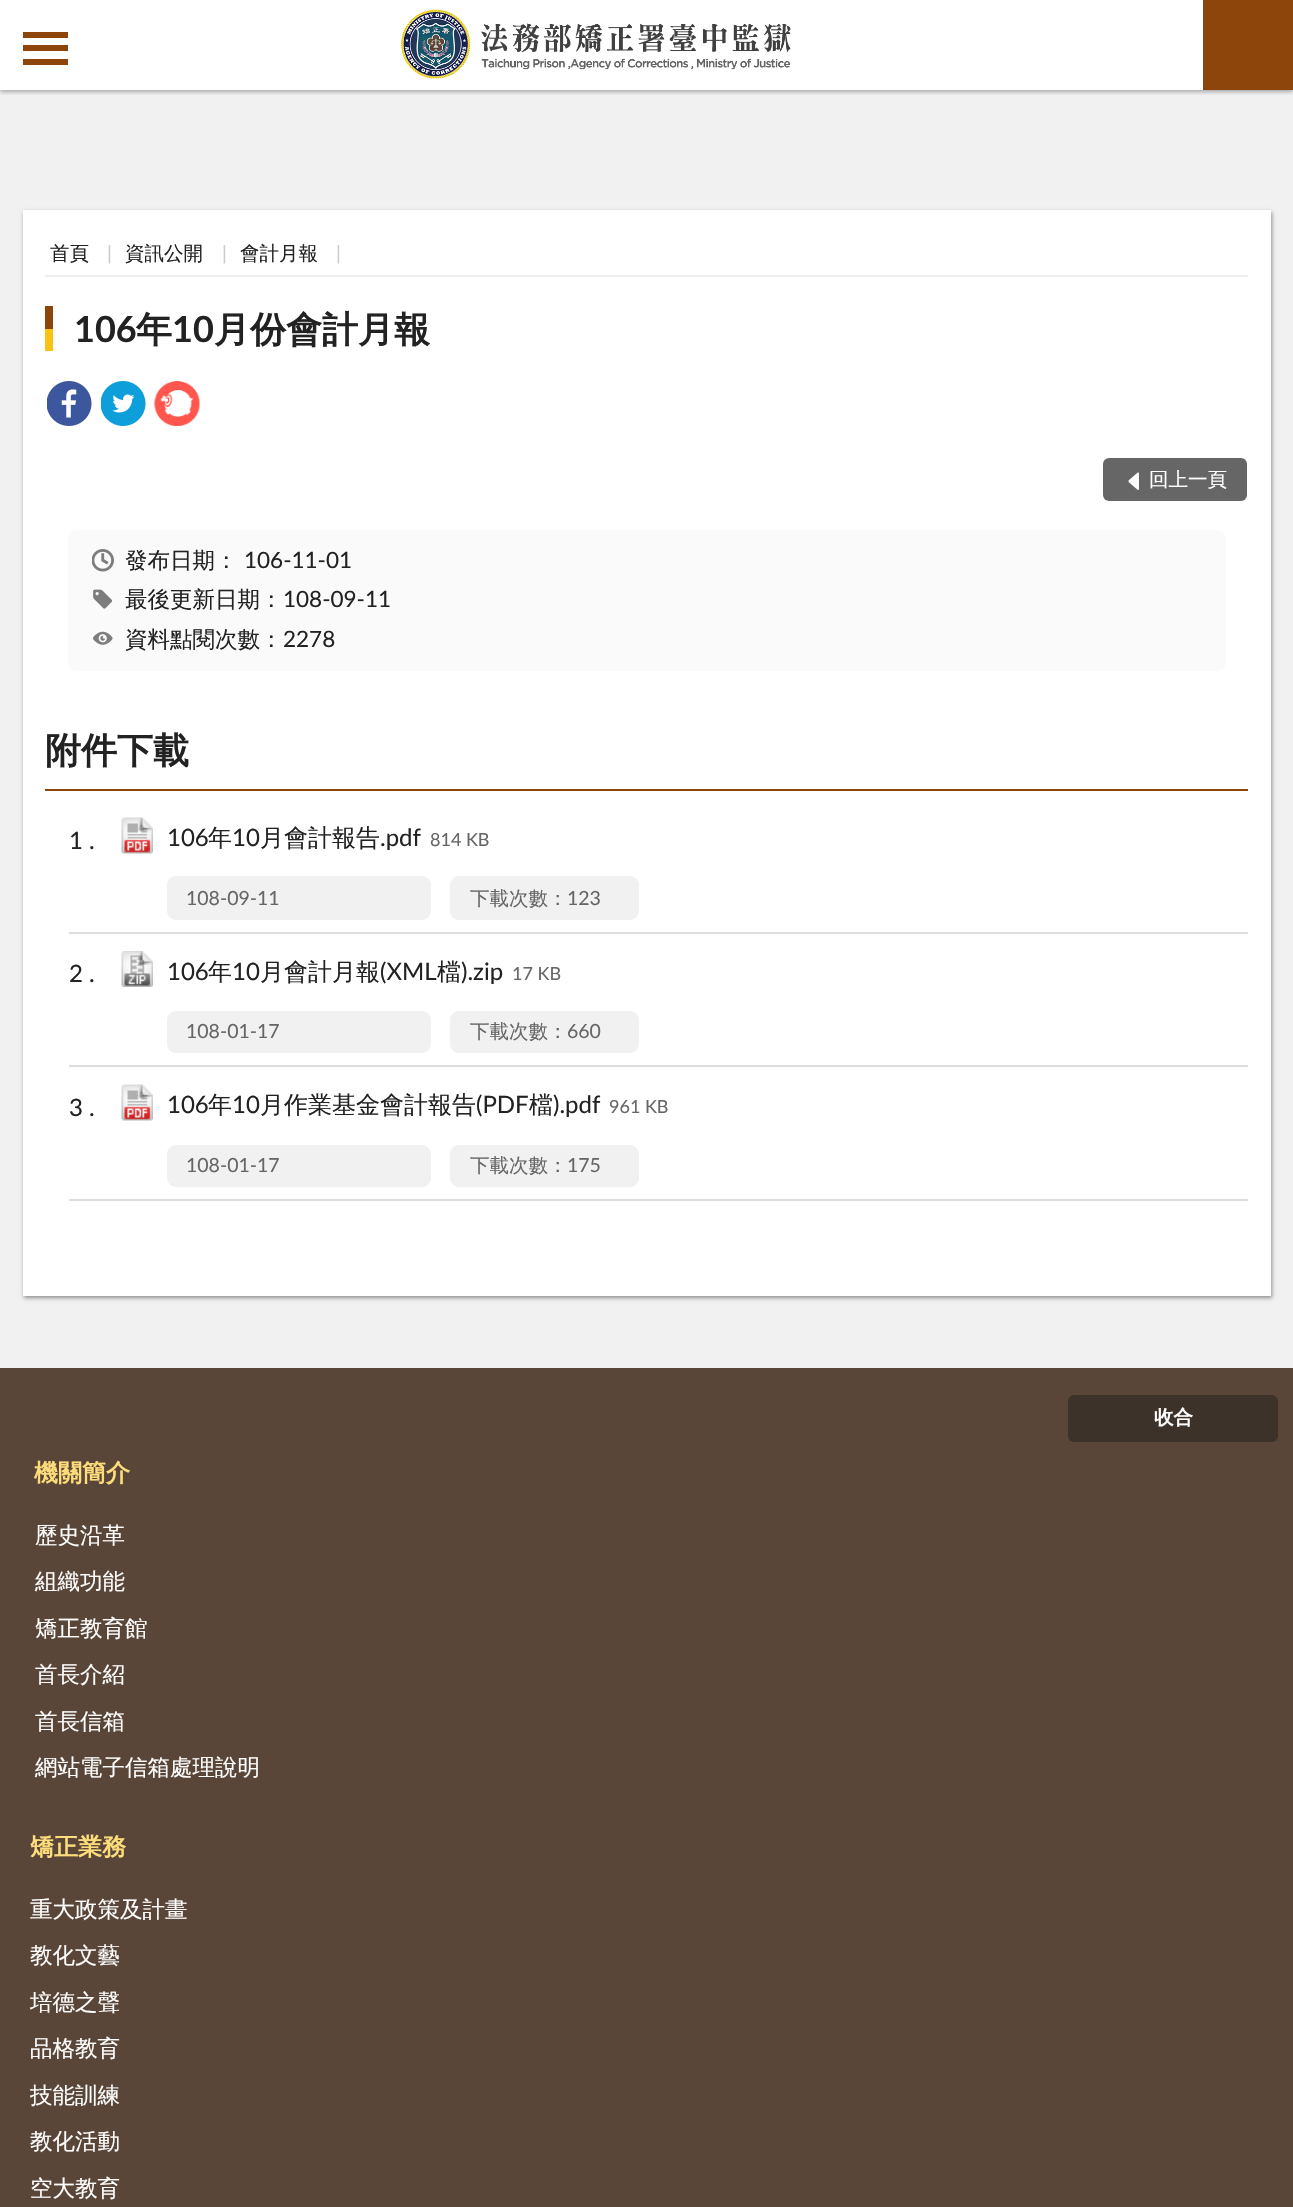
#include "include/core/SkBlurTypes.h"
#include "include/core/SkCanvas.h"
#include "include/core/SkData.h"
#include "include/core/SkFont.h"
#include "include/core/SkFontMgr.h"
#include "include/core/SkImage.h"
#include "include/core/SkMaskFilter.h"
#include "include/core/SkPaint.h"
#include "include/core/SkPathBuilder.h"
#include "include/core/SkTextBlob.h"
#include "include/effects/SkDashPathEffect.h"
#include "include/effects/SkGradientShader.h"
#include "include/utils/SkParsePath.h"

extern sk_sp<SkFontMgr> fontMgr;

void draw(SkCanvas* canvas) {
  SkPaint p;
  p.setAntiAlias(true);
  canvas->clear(SK_ColorWHITE);
  p.setColor(SkColorSetRGB(241, 241, 241));
  canvas->drawRect(SkRect::MakeLTRB(0, 90, 1293, 1368), p);
  canvas->save();
  canvas->clipRect(SkRect::MakeLTRB(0, 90, 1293, 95));
  p.setColor(SkColorSetARGB(77, 0, 0, 0));
  p.setMaskFilter(SkMaskFilter::MakeBlur(kNormal_SkBlurStyle, 2));
  canvas->drawRect(SkRect::MakeLTRB(0, 2, 1293, 92), p);
  p.setMaskFilter(nullptr);
  canvas->restore();
  p.setColor(SkColorSetRGB(141, 69, 12));
  canvas->drawRect(SkRect::MakeLTRB(23, 32, 68, 38), p);
  canvas->drawRect(SkRect::MakeLTRB(23, 45, 68, 51), p);
  canvas->drawRect(SkRect::MakeLTRB(23, 59, 68, 65), p);
  canvas->drawImageRect(SkImages::DeferredFromEncodedData(SkData::MakeFromFileName("images/1.png")), SkRect::MakeLTRB(401, 9, 791, 79), SkSamplingOptions());
  canvas->drawRect(SkRect::MakeLTRB(1203, 0, 1293, 90), p);
  p.setColor(SkColorSetARGB(102, 0, 0, 0));
  p.setMaskFilter(SkMaskFilter::MakeBlur(kNormal_SkBlurStyle, 2));
  canvas->drawRect(SkRect::MakeLTRB(24, 212, 1272, 1298), p);
  p.setMaskFilter(nullptr);
  p.setColor(SK_ColorWHITE);
  canvas->drawRect(SkRect::MakeLTRB(23, 210, 1271, 1296), p);
  p.setColor(SkColorSetRGB(238, 238, 238));
  canvas->drawRect(SkRect::MakeLTRB(45, 275, 1248, 277), p);
  p.setColor(SkColorSetRGB(141, 69, 12));
  canvas->drawRect(SkRect::MakeLTRB(45, 306, 53, 329), p);
  p.setColor(SkColorSetRGB(252, 194, 17));
  canvas->drawRect(SkRect::MakeLTRB(45, 329, 53, 351), p);
  canvas->drawImageRect(SkImages::DeferredFromEncodedData(SkData::MakeFromFileName("images/2.png")), SkRect::MakeLTRB(47, 381, 92, 426), SkSamplingOptions());
  canvas->drawImageRect(SkImages::DeferredFromEncodedData(SkData::MakeFromFileName("images/3.png")), SkRect::MakeLTRB(101, 381, 146, 426), SkSamplingOptions());
  canvas->drawImageRect(SkImages::DeferredFromEncodedData(SkData::MakeFromFileName("images/4.png")), SkRect::MakeLTRB(154, 381, 200, 426), SkSamplingOptions());
  p.setColor(SkColorSetRGB(102, 102, 102));
  canvas->drawRoundRect(SkRect::MakeLTRB(1103, 458, 1247, 501), 6, 6, p);
  canvas->drawImageRect(SkImages::DeferredFromEncodedData(SkData::MakeFromFileName("images/5.png")), SkRect::MakeLTRB(1128, 472, 1139, 490), SkSamplingOptions());
  p.setColor(SkColorSetRGB(250, 250, 250));
  canvas->drawRoundRect(SkRect::MakeLTRB(68, 530, 1226, 671), 9, 9, p);
  canvas->drawImageRect(SkImages::DeferredFromEncodedData(SkData::MakeFromFileName("images/6.png")), SkRect::MakeLTRB(92, 549, 114, 572), SkSamplingOptions());
  canvas->drawImageRect(SkImages::DeferredFromEncodedData(SkData::MakeFromFileName("images/7.png")), SkRect::MakeLTRB(93, 589, 113, 609), SkSamplingOptions());
  canvas->drawImageRect(SkImages::DeferredFromEncodedData(SkData::MakeFromFileName("images/8.png")), SkRect::MakeLTRB(93, 631, 113, 645), SkSamplingOptions());
  p.setColor(SkColorSetRGB(141, 69, 12));
  canvas->drawRect(SkRect::MakeLTRB(45, 789, 1248, 791), p);
  p.setColor(SkColorSetRGB(221, 221, 221));
  canvas->drawRect(SkRect::MakeLTRB(69, 932, 1248, 934), p);
  canvas->drawImageRect(SkImages::DeferredFromEncodedData(SkData::MakeFromFileName("images/9.png")), SkRect::MakeLTRB(121, 817, 153, 854), SkSamplingOptions());
  p.setColor(SkColorSetRGB(241, 241, 241));
  canvas->drawRoundRect(SkRect::MakeLTRB(167, 876, 431, 920), 9, 9, p);
  canvas->drawRoundRect(SkRect::MakeLTRB(450, 876, 639, 920), 9, 9, p);
  p.setColor(SkColorSetRGB(221, 221, 221));
  canvas->drawRect(SkRect::MakeLTRB(69, 1065, 1248, 1067), p);
  canvas->drawImageRect(SkImages::DeferredFromEncodedData(SkData::MakeFromFileName("images/10.png")), SkRect::MakeLTRB(121, 951, 153, 987), SkSamplingOptions());
  p.setColor(SkColorSetRGB(241, 241, 241));
  canvas->drawRoundRect(SkRect::MakeLTRB(167, 1011, 431, 1053), 9, 9, p);
  canvas->drawRoundRect(SkRect::MakeLTRB(450, 1011, 639, 1053), 9, 9, p);
  p.setColor(SkColorSetRGB(221, 221, 221));
  canvas->drawRect(SkRect::MakeLTRB(69, 1199, 1248, 1201), p);
  canvas->drawImageRect(SkImages::DeferredFromEncodedData(SkData::MakeFromFileName("images/9.png")), SkRect::MakeLTRB(121, 1084, 153, 1121), SkSamplingOptions());
  p.setColor(SkColorSetRGB(241, 241, 241));
  canvas->drawRoundRect(SkRect::MakeLTRB(167, 1145, 431, 1187), 9, 9, p);
  canvas->drawRoundRect(SkRect::MakeLTRB(450, 1145, 639, 1187), 9, 9, p);
  p.setColor(SkColorSetRGB(89, 70, 57));
  canvas->drawRect(SkRect::MakeLTRB(0, 1368, 1293, 2207), p);
  p.setColor(SkColorSetRGB(61, 50, 41));
  canvas->drawRoundRect(SkRect::MakeLTRB(1068, 1395, 1278, 1442), 6, 6, p);
  SkFont font1(fontMgr->matchFamilyStyle("WenQuanYi Zen Hei", SkFontStyle(500, SkFontStyle::kNormal_Width, SkFontStyle::kUpright_Slant)), 19.5f);
  font1.setSubpixel(true);
  p.setColor(SkColorSetRGB(34, 34, 34));
  canvas->drawString("首頁", 50, 260, font1, p);
  SkFont font2(fontMgr->matchFamilyStyle("Lato", SkFontStyle::Normal()), 19.5f);
  font2.setSubpixel(true);
  p.setColor(SkColorSetRGB(204, 204, 204));
  canvas->drawString("|", 107, 260, font2, p);
  p.setColor(SkColorSetRGB(34, 34, 34));
  canvas->drawString("資訊公開", 125, 260, font1, p);
  p.setColor(SkColorSetRGB(204, 204, 204));
  canvas->drawString("|", 222, 260, font2, p);
  p.setColor(SkColorSetRGB(34, 34, 34));
  canvas->drawString("會計月報", 240, 260, font1, p);
  p.setColor(SkColorSetRGB(204, 204, 204));
  canvas->drawString("|", 336, 260, font2, p);
  SkFont font3(fontMgr->matchFamilyStyle("Lato", SkFontStyle::Bold()), 36);
  font3.setSubpixel(true);
  p.setColor(SkColorSetRGB(34, 34, 34));
  canvas->drawString("106", 74, 342, font3, p);
  SkFont font4(fontMgr->matchFamilyStyle("WenQuanYi Zen Hei", SkFontStyle::Bold()), 36);
  font4.setSubpixel(true);
  canvas->drawString("年", 136, 342, font4, p);
  canvas->drawString("10", 172, 342, font3, p);
  canvas->drawString("月份會計月報", 214, 342, font4, p);
  p.setColor(SK_ColorWHITE);
  canvas->drawString("回上一頁", 1149, 486, font1, p);
  SkFont font5(fontMgr->matchFamilyStyle("WenQuanYi Zen Hei", SkFontStyle(500, SkFontStyle::kNormal_Width, SkFontStyle::kUpright_Slant)), 22.5f);
  font5.setSubpixel(true);
  p.setColor(SkColorSetRGB(34, 34, 34));
  canvas->drawString("發布日期：", 125, 568, font5, p);
  SkFont font6(fontMgr->matchFamilyStyle("Lato", SkFontStyle::Normal()), 22.5f);
  font6.setSubpixel(true);
  canvas->drawString("106-11-01", 244, 568, font6, p);
  canvas->drawString("最後更新日期：", 125, 607, font5, p);
  canvas->drawString("108-09-11", 283, 607, font6, p);
  canvas->drawString("資料點閱次數：", 125, 647, font5, p);
  canvas->drawString("2278", 283, 647, font6, p);
  canvas->drawString("附件下載", 45, 763, font4, p);
  SkFont font7(fontMgr->matchFamilyStyle("Lato", SkFontStyle::Normal()), 24);
  font7.setSubpixel(true);
  canvas->drawString("1 .", 69, 849, font7, p);
  canvas->drawString("106", 167, 846, font7, p);
  SkFont font8(fontMgr->matchFamilyStyle("WenQuanYi Zen Hei", SkFontStyle(500, SkFontStyle::kNormal_Width, SkFontStyle::kUpright_Slant)), 24);
  font8.setSubpixel(true);
  canvas->drawString("年", 208, 846, font8, p);
  canvas->drawString("10", 232, 846, font7, p);
  canvas->drawString("月會計報告", 260, 846, font8, p);
  canvas->drawString(".pdf", 380, 846, font7, p);
  SkFont font9(fontMgr->matchFamilyStyle("Lato", SkFontStyle::Normal()), 18);
  font9.setSubpixel(true);
  p.setColor(SkColorSetRGB(102, 102, 102));
  canvas->drawString("814 KB", 430, 846, font9, p);
  canvas->drawString("108-09-11", 186, 905, font2, p);
  canvas->drawString("下載次數：", 470, 905, font1, p);
  canvas->drawString("123", 567, 905, font2, p);
  p.setColor(SkColorSetRGB(34, 34, 34));
  canvas->drawString("2 .", 69, 982, font7, p);
  canvas->drawString("106", 167, 980, font7, p);
  canvas->drawString("年", 208, 980, font8, p);
  canvas->drawString("10", 232, 980, font7, p);
  canvas->drawString("月會計月報", 260, 980, font8, p);
  canvas->drawString("(XML", 380, 980, font7, p);
  canvas->drawString("檔", 437, 980, font8, p);
  canvas->drawString(").zip", 461, 980, font7, p);
  p.setColor(SkColorSetRGB(102, 102, 102));
  canvas->drawString("17 KB", 512, 980, font9, p);
  canvas->drawString("108-01-17", 186, 1038, font2, p);
  canvas->drawString("下載次數：", 470, 1038, font1, p);
  canvas->drawString("660", 567, 1038, font2, p);
  p.setColor(SkColorSetRGB(34, 34, 34));
  canvas->drawString("3 .", 69, 1116, font7, p);
  canvas->drawString("106", 167, 1113, font7, p);
  canvas->drawString("年", 208, 1113, font8, p);
  canvas->drawString("10", 232, 1113, font7, p);
  canvas->drawString("月作業基金會計報告", 260, 1113, font8, p);
  canvas->drawString("(PDF", 476, 1113, font7, p);
  canvas->drawString("檔", 529, 1113, font8, p);
  canvas->drawString(").pdf", 553, 1113, font7, p);
  p.setColor(SkColorSetRGB(102, 102, 102));
  canvas->drawString("961 KB", 609, 1113, font9, p);
  canvas->drawString("108-01-17", 186, 1172, font2, p);
  canvas->drawString("下載次數：", 470, 1172, font1, p);
  canvas->drawString("175", 567, 1172, font2, p);
  SkFont font10(fontMgr->matchFamilyStyle("WenQuanYi Zen Hei", SkFontStyle::Bold()), 19.5f);
  font10.setSubpixel(true);
  p.setColor(SK_ColorWHITE);
  canvas->drawString("收合", 1154, 1424, font10, p);
  SkFont font11(fontMgr->matchFamilyStyle("WenQuanYi Zen Hei", SkFontStyle::Bold()), 24);
  font11.setSubpixel(true);
  p.setColor(SkColorSetRGB(253, 221, 123));
  canvas->drawString("機關簡介", 34, 1481, font11, p);
  p.setColor(SK_ColorWHITE);
  canvas->drawString("歷史沿革", 35, 1543, font5, p);
  canvas->drawString("組織功能", 35, 1589, font5, p);
  canvas->drawString("矯正教育館", 35, 1636, font5, p);
  canvas->drawString("首長介紹", 35, 1682, font5, p);
  canvas->drawString("首長信箱", 35, 1729, font5, p);
  canvas->drawString("網站電子信箱處理說明", 35, 1775, font5, p);
  p.setColor(SkColorSetRGB(253, 221, 123));
  canvas->drawString("矯正業務", 30, 1855, font11, p);
  p.setColor(SK_ColorWHITE);
  canvas->drawString("重大政策及計畫", 30, 1917, font5, p);
  canvas->drawString("教化文藝", 30, 1963, font5, p);
  canvas->drawString("培德之聲", 30, 2010, font5, p);
  canvas->drawString("品格教育", 30, 2056, font5, p);
  canvas->drawString("技能訓練", 30, 2103, font5, p);
  canvas->drawString("教化活動", 30, 2149, font5, p);
  canvas->drawString("空大教育", 30, 2196, font5, p);
}
